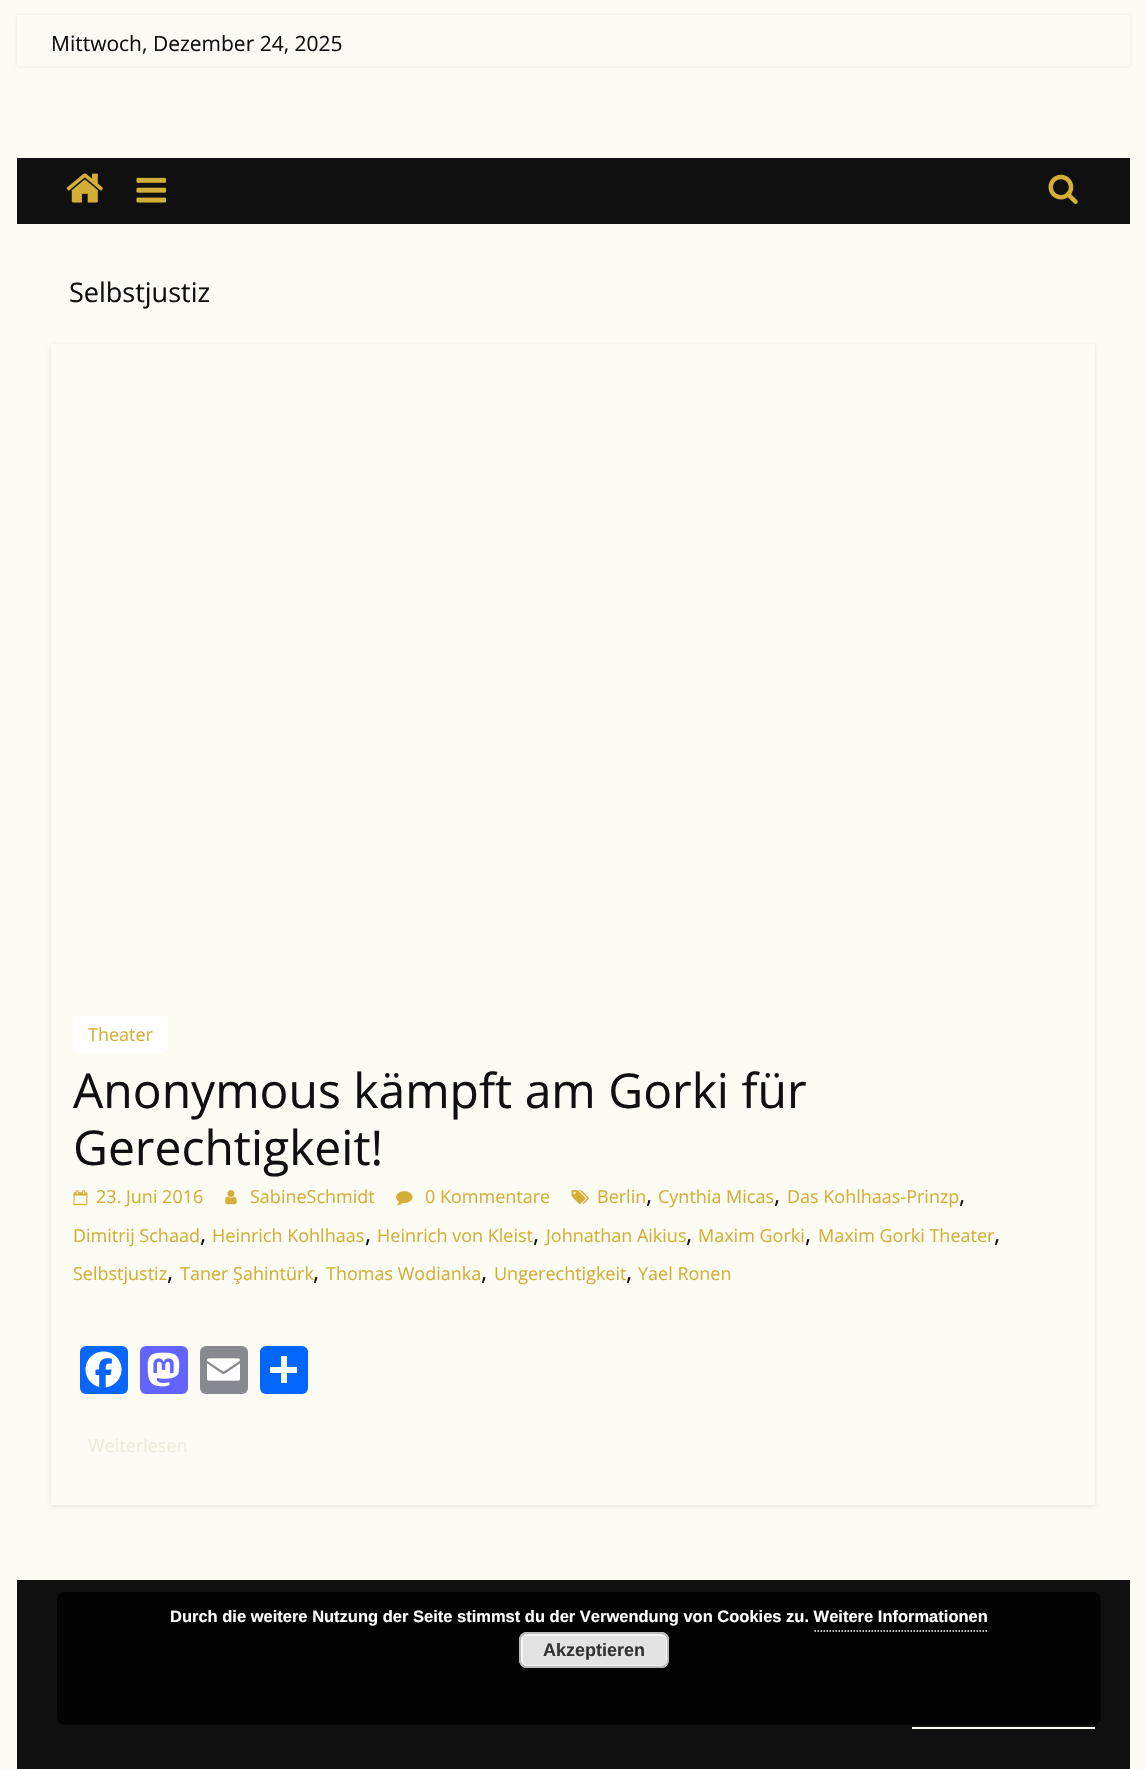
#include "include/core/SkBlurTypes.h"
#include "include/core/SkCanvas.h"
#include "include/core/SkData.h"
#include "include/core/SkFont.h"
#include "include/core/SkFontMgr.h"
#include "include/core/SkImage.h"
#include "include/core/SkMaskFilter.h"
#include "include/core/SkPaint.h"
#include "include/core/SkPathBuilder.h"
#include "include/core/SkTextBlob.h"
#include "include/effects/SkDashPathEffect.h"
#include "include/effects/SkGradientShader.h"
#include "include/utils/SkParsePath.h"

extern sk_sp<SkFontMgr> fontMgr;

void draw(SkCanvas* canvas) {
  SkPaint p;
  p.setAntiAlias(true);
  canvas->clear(SkColorSetRGB(252, 252, 244));
  p.setColor(SkColorSetARGB(26, 0, 0, 0));
  p.setMaskFilter(SkMaskFilter::MakeBlur(kNormal_SkBlurStyle, 1.5f));
  canvas->drawRect(SkRect::MakeLTRB(17, 15, 1130, 66), p);
  p.setMaskFilter(nullptr);
  p.setColor(SkColorSetRGB(252, 252, 244));
  canvas->drawRect(SkRect::MakeLTRB(17, 15, 1130, 66), p);
  p.setColor(SkColorSetRGB(16, 16, 16));
  canvas->drawRect(SkRect::MakeLTRB(17, 158, 1130, 224), p);
  canvas->drawImageRect(SkImages::DeferredFromEncodedData(SkData::MakeFromFileName("images/1.png")), SkRect::MakeLTRB(66, 173, 103, 203), SkSamplingOptions());
  canvas->drawImageRect(SkImages::DeferredFromEncodedData(SkData::MakeFromFileName("images/2.png")), SkRect::MakeLTRB(136, 177, 167, 203), SkSamplingOptions());
  canvas->drawImageRect(SkImages::DeferredFromEncodedData(SkData::MakeFromFileName("images/3.png")), SkRect::MakeLTRB(1048, 174, 1078, 204), SkSamplingOptions());
  canvas->save();
  canvas->clipPath(SkPathBuilder(SkPathFillType::kEvenOdd).moveTo(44, 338).lineTo(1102, 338).lineTo(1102, 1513).lineTo(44, 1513).close().moveTo(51, 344).lineTo(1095, 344).lineTo(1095, 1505).lineTo(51, 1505).close().detach(), true);
  p.setColor(SkColorSetARGB(26, 0, 0, 0));
  p.setMaskFilter(SkMaskFilter::MakeBlur(kNormal_SkBlurStyle, 2));
  canvas->drawRect(SkRect::MakeLTRB(51, 345, 1095, 1506), p);
  p.setMaskFilter(nullptr);
  canvas->restore();
  p.setColor(SK_ColorWHITE);
  canvas->drawRoundRect(SkRect::MakeLTRB(74, 1016, 168, 1053), 5, 5, p);
  canvas->drawImageRect(SkImages::DeferredFromEncodedData(SkData::MakeFromFileName("images/4.png")), SkRect::MakeLTRB(571, 1190, 589, 1204), SkSamplingOptions());
  canvas->drawImageRect(SkImages::DeferredFromEncodedData(SkData::MakeFromFileName("images/5.png")), SkRect::MakeLTRB(73, 1190, 88, 1206), SkSamplingOptions());
  canvas->drawImageRect(SkImages::DeferredFromEncodedData(SkData::MakeFromFileName("images/6.png")), SkRect::MakeLTRB(225, 1190, 237, 1205), SkSamplingOptions());
  canvas->drawImageRect(SkImages::DeferredFromEncodedData(SkData::MakeFromFileName("images/7.png")), SkRect::MakeLTRB(396, 1191, 413, 1206), SkSamplingOptions());
  p.setColor(SkColorSetRGB(8, 102, 255));
  canvas->drawRoundRect(SkRect::MakeLTRB(80, 1346, 128, 1394), 6, 6, p);
  canvas->drawImageRect(SkImages::DeferredFromEncodedData(SkData::MakeFromFileName("images/8.png")), SkRect::MakeLTRB(85, 1351, 122, 1388), SkSamplingOptions());
  p.setColor(SkColorSetRGB(99, 100, 255));
  canvas->drawRoundRect(SkRect::MakeLTRB(140, 1346, 188, 1394), 6, 6, p);
  canvas->drawImageRect(SkImages::DeferredFromEncodedData(SkData::MakeFromFileName("images/9.png")), SkRect::MakeLTRB(147, 1352, 180, 1387), SkSamplingOptions());
  p.setColor(SkColorSetRGB(136, 137, 144));
  canvas->drawRoundRect(SkRect::MakeLTRB(200, 1346, 248, 1394), 6, 6, p);
  canvas->drawImageRect(SkImages::DeferredFromEncodedData(SkData::MakeFromFileName("images/10.png")), SkRect::MakeLTRB(207, 1358, 240, 1381), SkSamplingOptions());
  p.setColor(SkColorSetRGB(1, 102, 255));
  canvas->drawRoundRect(SkRect::MakeLTRB(260, 1346, 308, 1394), 6, 6, p);
  p.setColor(SK_ColorWHITE);
  canvas->drawRect(SkRect::MakeLTRB(281, 1356, 287, 1383), p);
  canvas->drawRect(SkRect::MakeLTRB(270, 1367, 297, 1373), p);
  p.setColor(SkColorSetRGB(16, 16, 16));
  canvas->drawRect(SkRect::MakeLTRB(17, 1580, 1130, 1769), p);
  p.setColor(SkColorSetRGB(252, 252, 244));
  canvas->drawRect(SkRect::MakeLTRB(912, 1727, 1095, 1729), p);
  p.setColor(SkColorSetARGB(217, 0, 0, 0));
  canvas->drawRoundRect(SkRect::MakeLTRB(57, 1592, 1101, 1725), 8, 8, p);
  p.setStyle(SkPaint::kStroke_Style);
  p.setStrokeWidth(1.5f);
  p.setColor(SK_ColorWHITE);
  p.setPathEffect(SkDashPathEffect::Make({{1.5f, 1.5f}}, 0));
  canvas->drawPath(SkPathBuilder().moveTo(814.5f, 1631).lineTo(988.5f, 1631).detach(), p);
  p.setPathEffect(nullptr);
  p.setStyle(SkPaint::kFill_Style);
  p.setColor(SkColorSetRGB(227, 227, 227));
  canvas->drawRoundRect(SkRect::MakeLTRB(519, 1632, 669, 1668), 8, 8, p);
  p.setStyle(SkPaint::kStroke_Style);
  p.setStrokeWidth(2);
  p.setColor(SkColorSetRGB(246, 246, 246));
  canvas->drawRoundRect(SkRect::MakeLTRB(522, 1635, 667, 1666), 5, 5, p);
  p.setColor(SkColorSetRGB(187, 187, 187));
  canvas->drawRoundRect(SkRect::MakeLTRB(520, 1633, 668, 1667), 7, 7, p);
  SkFont font1(fontMgr->matchFamilyStyle("Open Sans", SkFontStyle::Normal()), 21);
  font1.setSubpixel(true);
  p.setStyle(SkPaint::kFill_Style);
  p.setColor(SkColorSetRGB(16, 16, 16));
  canvas->drawString("Mittwoch, Dezember 24, 2025", 51, 51, font1, p);
  SkFont font2(fontMgr->matchFamilyStyle("Open Sans", SkFontStyle::Normal()), 27);
  font2.setSubpixel(true);
  canvas->drawString("Selbstjustiz", 69, 302, font2, p);
  SkFont font3(fontMgr->matchFamilyStyle("Open Sans", SkFontStyle::Normal()), 18);
  font3.setSubpixel(true);
  p.setColor(SkColorSetRGB(212, 175, 55));
  canvas->drawString("Theater", 88, 1041, font3, p);
  SkFont font4(fontMgr->matchFamilyStyle("Open Sans", SkFontStyle::Normal()), 48);
  font4.setSubpixel(true);
  p.setColor(SkColorSetRGB(16, 16, 16));
  canvas->drawString("Anonymous kämpft am Gorki für", 73, 1108, font4, p);
  canvas->drawString("Gerechtigkeit!", 73, 1165, font4, p);
  p.setColor(SkColorSetRGB(212, 175, 55));
  canvas->drawString("Berlin", 597, 1203, font3, p);
  SkFont font5(fontMgr->matchFamilyStyle("Open Sans", SkFontStyle::Normal()), 24);
  font5.setSubpixel(true);
  p.setColor(SkColorSetRGB(16, 16, 16));
  canvas->drawString(",", 646, 1203, font5, p);
  p.setColor(SkColorSetRGB(212, 175, 55));
  canvas->drawString("Cynthia Micas", 658, 1203, font3, p);
  p.setColor(SkColorSetRGB(16, 16, 16));
  canvas->drawString(",", 774, 1203, font5, p);
  p.setColor(SkColorSetRGB(212, 175, 55));
  canvas->drawString("Das Kohlhaas-Prinzp", 787, 1203, font3, p);
  p.setColor(SkColorSetRGB(16, 16, 16));
  canvas->drawString(",", 959, 1203, font5, p);
  p.setColor(SkColorSetRGB(212, 175, 55));
  canvas->drawString("Dimitrij Schaad", 73, 1242, font3, p);
  p.setColor(SkColorSetRGB(16, 16, 16));
  canvas->drawString(",", 200, 1242, font5, p);
  p.setColor(SkColorSetRGB(212, 175, 55));
  canvas->drawString("Heinrich Kohlhaas", 212, 1242, font3, p);
  p.setColor(SkColorSetRGB(16, 16, 16));
  canvas->drawString(",", 365, 1242, font5, p);
  p.setColor(SkColorSetRGB(212, 175, 55));
  canvas->drawString("Heinrich von Kleist", 377, 1242, font3, p);
  p.setColor(SkColorSetRGB(16, 16, 16));
  canvas->drawString(",", 533, 1242, font5, p);
  p.setColor(SkColorSetRGB(212, 175, 55));
  canvas->drawString("Johnathan Aikius", 546, 1242, font3, p);
  p.setColor(SkColorSetRGB(16, 16, 16));
  canvas->drawString(",", 686, 1242, font5, p);
  p.setColor(SkColorSetRGB(212, 175, 55));
  canvas->drawString("Maxim Gorki", 698, 1242, font3, p);
  p.setColor(SkColorSetRGB(16, 16, 16));
  canvas->drawString(",", 805, 1242, font5, p);
  p.setColor(SkColorSetRGB(212, 175, 55));
  canvas->drawString("Maxim Gorki Theater", 818, 1242, font3, p);
  p.setColor(SkColorSetRGB(16, 16, 16));
  canvas->drawString(",", 994, 1242, font5, p);
  p.setColor(SkColorSetRGB(212, 175, 55));
  canvas->drawString("Selbstjustiz", 73, 1280, font3, p);
  p.setColor(SkColorSetRGB(16, 16, 16));
  canvas->drawString(",", 167, 1280, font5, p);
  p.setColor(SkColorSetRGB(212, 175, 55));
  canvas->drawString("Taner Şahintürk", 180, 1280, font3, p);
  p.setColor(SkColorSetRGB(16, 16, 16));
  canvas->drawString(",", 313, 1280, font5, p);
  p.setColor(SkColorSetRGB(212, 175, 55));
  canvas->drawString("Thomas Wodianka", 326, 1280, font3, p);
  p.setColor(SkColorSetRGB(16, 16, 16));
  canvas->drawString(",", 481, 1280, font5, p);
  p.setColor(SkColorSetRGB(212, 175, 55));
  canvas->drawString("Ungerechtigkeit", 494, 1280, font3, p);
  p.setColor(SkColorSetRGB(16, 16, 16));
  canvas->drawString(",", 626, 1280, font5, p);
  p.setColor(SkColorSetRGB(212, 175, 55));
  canvas->drawString("Yael Ronen", 638, 1280, font3, p);
  canvas->drawString("23. Juni 2016", 96, 1203, font3, p);
  canvas->drawString("SabineSchmidt", 250, 1203, font3, p);
  canvas->drawString("0 Kommentare", 425, 1203, font3, p);
  p.setColor(SkColorSetRGB(239, 235, 220));
  canvas->drawString("Weiterlesen", 88, 1452, font3, p);
  SkFont font6(fontMgr->matchFamilyStyle("Liberation Sans", SkFontStyle::Bold()), 16.5f);
  font6.setSubpixel(true);
  p.setColor(SK_ColorWHITE);
  canvas->drawString("Durch die weitere Nutzung der Seite stimmst du der Verwendung von Cookies zu. Weitere Informationen", 170, 1622, font6, p);
  SkFont font7(fontMgr->matchFamilyStyle("Liberation Sans", SkFontStyle::Bold()), 18);
  font7.setSubpixel(true);
  p.setColor(SkColorSetRGB(51, 51, 51));
  canvas->drawString("Akzeptieren", 543, 1656, font7, p);
}
